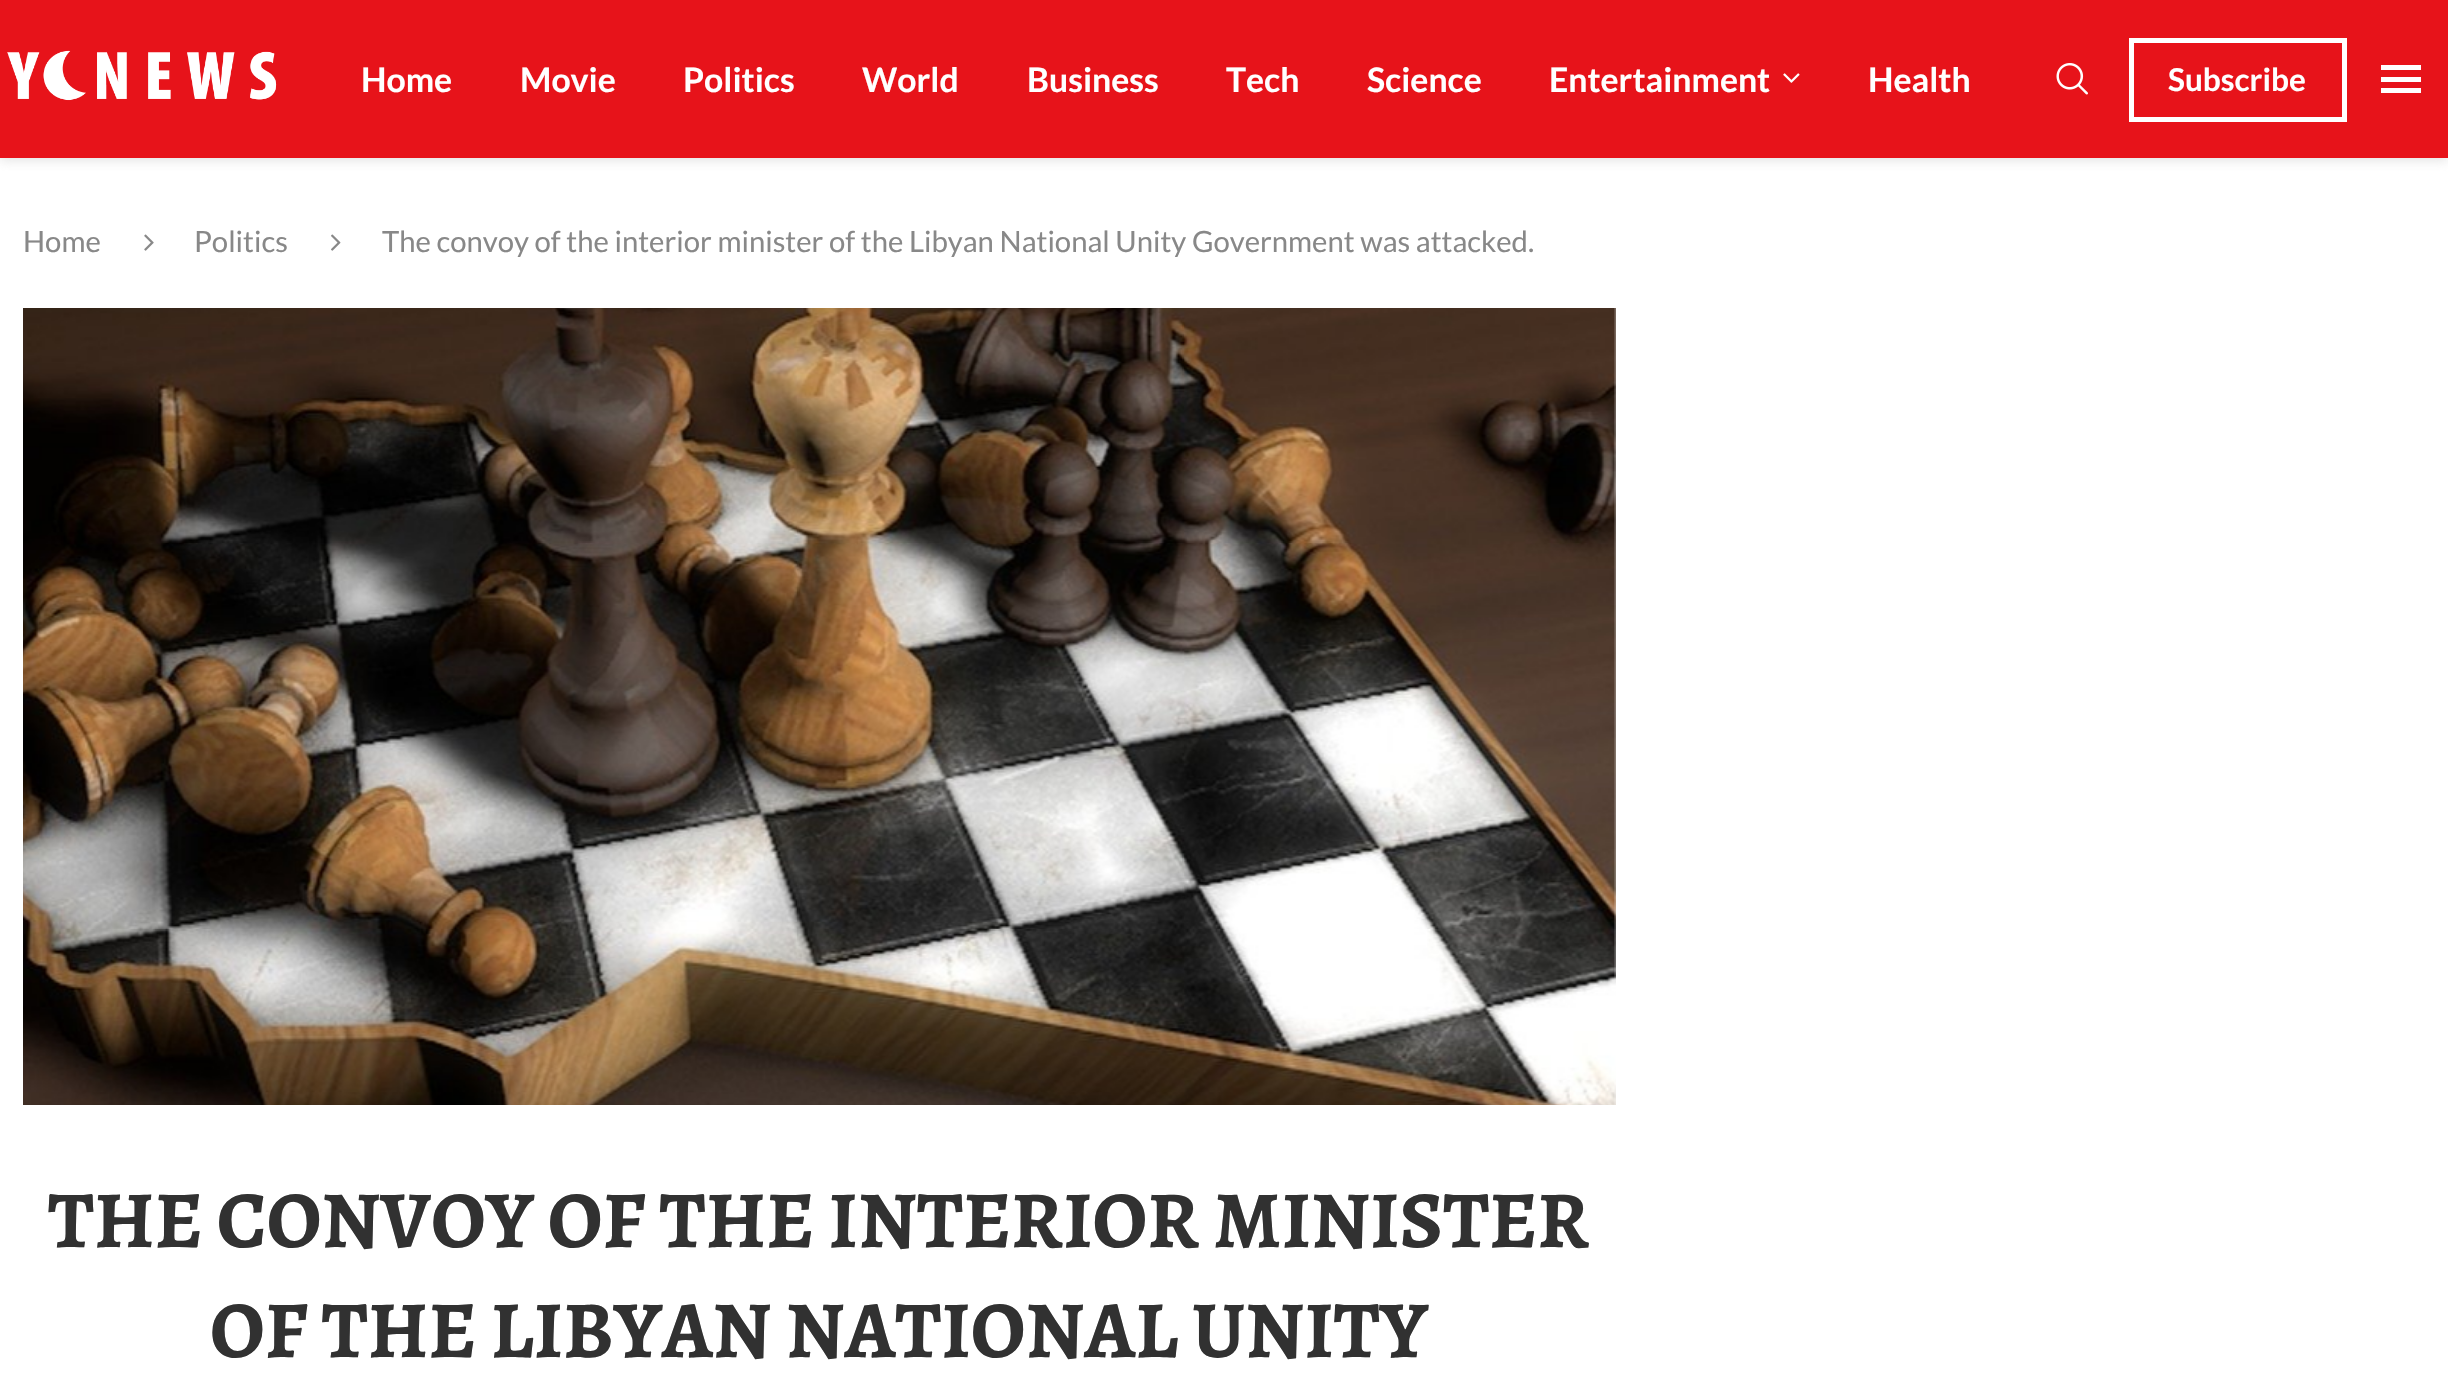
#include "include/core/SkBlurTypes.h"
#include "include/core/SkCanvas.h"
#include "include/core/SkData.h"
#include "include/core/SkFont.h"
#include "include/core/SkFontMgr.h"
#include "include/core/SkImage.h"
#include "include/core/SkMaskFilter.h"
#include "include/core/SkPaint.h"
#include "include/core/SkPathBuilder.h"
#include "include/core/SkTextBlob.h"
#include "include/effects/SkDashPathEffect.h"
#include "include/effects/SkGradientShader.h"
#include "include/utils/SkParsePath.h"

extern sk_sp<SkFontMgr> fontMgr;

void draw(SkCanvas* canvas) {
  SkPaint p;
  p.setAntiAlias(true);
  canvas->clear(SK_ColorWHITE);
  p.setColor(SkColorSetARGB(117, 190, 190, 190));
  p.setMaskFilter(SkMaskFilter::MakeBlur(kNormal_SkBlurStyle, 5.5f));
  canvas->drawRect(SkRect::MakeLTRB(0, 2, 2448, 160), p);
  p.setMaskFilter(nullptr);
  p.setColor(SkColorSetRGB(231, 19, 26));
  canvas->drawRect(SkRect::MakeLTRB(0, 0, 2448, 158), p);
  canvas->drawImageRect(SkImages::DeferredFromEncodedData(SkData::MakeFromFileName("images/1.png")), SkRect::MakeLTRB(7, 50, 277, 101), SkSamplingOptions());
  canvas->drawImageRect(SkImages::DeferredFromEncodedData(SkData::MakeFromFileName("images/2.png")), SkRect::MakeLTRB(1783, 73, 1800, 83), SkSamplingOptions());
  canvas->drawImageRect(SkImages::DeferredFromEncodedData(SkData::MakeFromFileName("images/3.png")), SkRect::MakeLTRB(2056, 63, 2088, 95), SkSamplingOptions());
  p.setStyle(SkPaint::kStroke_Style);
  p.setStrokeWidth(5);
  p.setColor(SK_ColorWHITE);
  canvas->drawRect(SkRect::MakeLTRB(2131.5f, 40.5f, 2344.5f, 119.5f), p);
  p.setStyle(SkPaint::kFill_Style);
  canvas->drawRect(SkRect::MakeLTRB(2381, 65, 2421, 70), p);
  canvas->drawRect(SkRect::MakeLTRB(2381, 88, 2421, 93), p);
  canvas->drawRect(SkRect::MakeLTRB(2381, 77, 2421, 82), p);
  canvas->drawImageRect(SkImages::DeferredFromEncodedData(SkData::MakeFromFileName("images/4.png")), SkRect::MakeLTRB(144, 234, 154, 251), SkSamplingOptions());
  canvas->drawImageRect(SkImages::DeferredFromEncodedData(SkData::MakeFromFileName("images/5.png")), SkRect::MakeLTRB(331, 234, 341, 251), SkSamplingOptions());
  canvas->drawImageRect(SkImages::DeferredFromEncodedData(SkData::MakeFromFileName("images/6.png")), SkRect::MakeLTRB(23, 308, 1616, 1105), SkSamplingOptions());
  SkFont font1(fontMgr->matchFamilyStyle("Lato", SkFontStyle::Bold()), 33.75f);
  font1.setSubpixel(true);
  canvas->drawString("Home", 361, 92, font1, p);
  canvas->drawString("Movie", 520, 92, font1, p);
  canvas->drawString("Politics", 683, 92, font1, p);
  canvas->drawString("World", 862, 92, font1, p);
  canvas->drawString("Business", 1027, 92, font1, p);
  canvas->drawString("Tech", 1226, 92, font1, p);
  canvas->drawString("Science", 1367, 92, font1, p);
  canvas->drawString("Entertainment", 1549, 92, font1, p);
  canvas->drawString("Health", 1868, 92, font1, p);
  SkFont font2(fontMgr->matchFamilyStyle("Lato", SkFontStyle::Bold()), 31.5f);
  font2.setSubpixel(true);
  canvas->drawString("Subscribe", 2168, 91, font2, p);
  SkFont font3(fontMgr->matchFamilyStyle("Lato", SkFontStyle::Normal()), 29.25f);
  font3.setSubpixel(true);
  p.setColor(SkColorSetRGB(136, 136, 136));
  canvas->drawString("Home", 23, 252, font3, p);
  canvas->drawString("Politics", 194, 252, font3, p);
  canvas->drawString("The convoy of the interior minister of the Libyan National Unity Government was attacked.", 382, 252, font3, p);
  SkFont font4(fontMgr->matchFamilyStyle("Alegreya", SkFontStyle::Bold()), 81);
  font4.setSubpixel(true);
  p.setColor(SkColorSetRGB(49, 49, 49));
  canvas->drawString("THE CONVOY OF THE INTERIOR MINISTER", 48, 1247, font4, p);
  canvas->drawString("OF THE LIBYAN NATIONAL UNITY", 210, 1357, font4, p);
}
